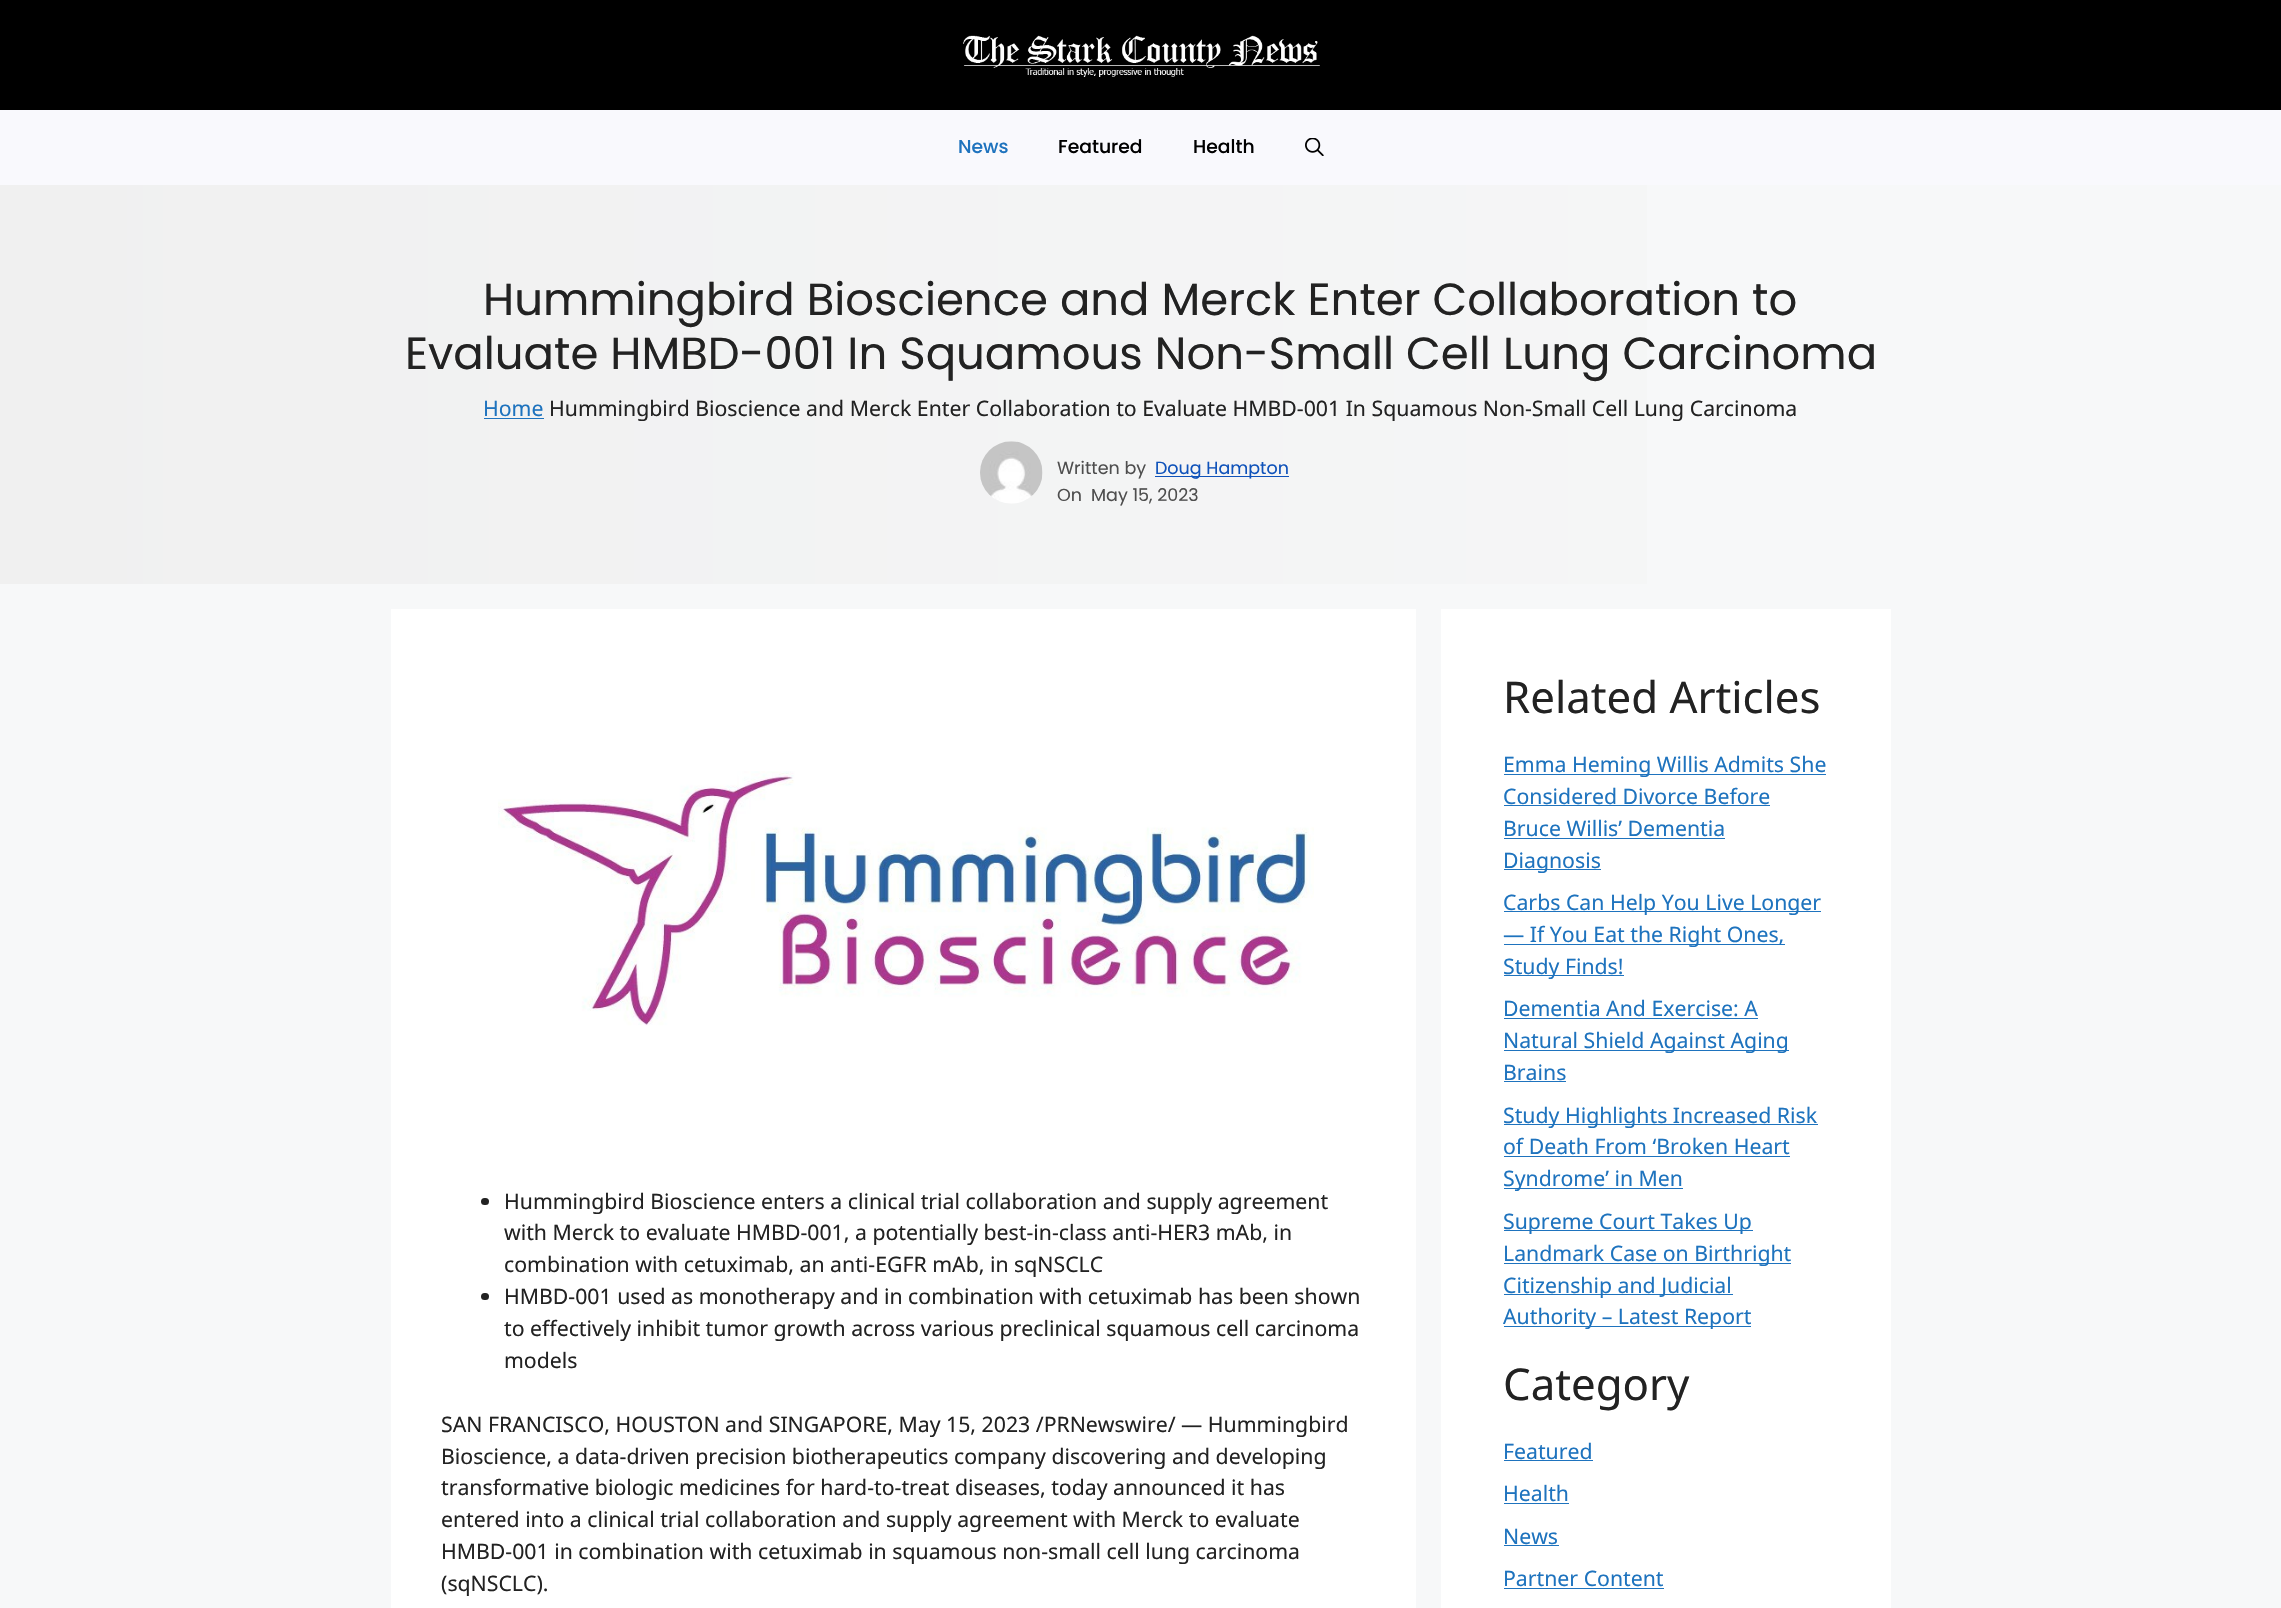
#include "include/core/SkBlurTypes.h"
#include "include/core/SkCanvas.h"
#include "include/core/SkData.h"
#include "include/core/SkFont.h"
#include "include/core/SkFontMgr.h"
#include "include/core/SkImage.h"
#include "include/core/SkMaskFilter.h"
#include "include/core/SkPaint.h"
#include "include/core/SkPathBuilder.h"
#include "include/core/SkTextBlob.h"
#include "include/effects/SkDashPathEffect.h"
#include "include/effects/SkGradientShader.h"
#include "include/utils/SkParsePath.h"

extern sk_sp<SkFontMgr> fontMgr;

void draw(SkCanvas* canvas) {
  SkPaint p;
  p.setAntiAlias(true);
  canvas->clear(SkColorSetRGB(247, 248, 249));
  p.setColor(SK_ColorBLACK);
  canvas->drawRect(SkRect::MakeLTRB(0, 0, 2281, 110), p);
  canvas->drawImageRect(SkImages::DeferredFromEncodedData(SkData::MakeFromFileName("images/1.png")), SkRect::MakeLTRB(963, 35, 1320, 77), SkSamplingOptions());
  p.setColor(SkColorSetRGB(249, 249, 253));
  canvas->drawRect(SkRect::MakeLTRB(0, 110, 2281, 185), p);
  canvas->drawImageRect(SkImages::DeferredFromEncodedData(SkData::MakeFromFileName("images/2.png")), SkRect::MakeLTRB(1305, 138, 1324, 156), SkSamplingOptions());
  {
    const SkColor colors[] = {SkColorSetRGB(240, 240, 240), SkColorSetRGB(247, 248, 249)};
    const float stops[] = {0, 1};
    const SkPoint ends[] = {{0, 384}, {2281, 384}};
    p.setShader(SkGradientShader::MakeLinear(ends, colors, stops, 2, SkTileMode::kClamp));
    p.setAlpha(255);
  }
  canvas->drawRect(SkRect::MakeLTRB(0, 185, 1647, 584), p);
  p.setShader(nullptr);
  p.setColor(SkColorSetRGB(30, 115, 190));
  canvas->drawRect(SkRect::MakeLTRB(484, 418, 544, 419), p);
  canvas->drawImageRect(SkImages::DeferredFromEncodedData(SkData::MakeFromFileName("images/3.png")), SkRect::MakeLTRB(980, 441, 1043, 504), SkSamplingOptions());
  p.setColor(SkColorSetRGB(15, 82, 186));
  canvas->drawRect(SkRect::MakeLTRB(1155, 476, 1289, 477), p);
  p.setColor(SK_ColorWHITE);
  canvas->drawRect(SkRect::MakeLTRB(391, 609, 1416, 1608), p);
  canvas->drawImageRect(SkImages::DeferredFromEncodedData(SkData::MakeFromFileName("images/4.png")), SkRect::MakeLTRB(498, 771, 1314, 1026), SkSamplingOptions());
  p.setColor(SkColorSetRGB(34, 34, 34));
  canvas->drawRoundRect(SkRect::MakeLTRB(481, 1198, 489, 1205), 3.5f, 3.5f, p);
  canvas->drawRoundRect(SkRect::MakeLTRB(481, 1293, 489, 1300), 3.5f, 3.5f, p);
  p.setColor(SK_ColorWHITE);
  canvas->drawRect(SkRect::MakeLTRB(1441, 609, 1891, 1608), p);
  p.setColor(SkColorSetRGB(30, 115, 190));
  canvas->drawRect(SkRect::MakeLTRB(1504, 774, 1826, 775), p);
  canvas->drawRect(SkRect::MakeLTRB(1504, 805, 1770, 806), p);
  canvas->drawRect(SkRect::MakeLTRB(1504, 838, 1725, 839), p);
  canvas->drawRect(SkRect::MakeLTRB(1504, 869, 1601, 870), p);
  canvas->drawRect(SkRect::MakeLTRB(1504, 911, 1821, 912), p);
  canvas->drawRect(SkRect::MakeLTRB(1504, 944, 1785, 945), p);
  canvas->drawRect(SkRect::MakeLTRB(1504, 975, 1624, 976), p);
  canvas->drawRect(SkRect::MakeLTRB(1504, 1018, 1758, 1019), p);
  canvas->drawRect(SkRect::MakeLTRB(1504, 1050, 1789, 1051), p);
  canvas->drawRect(SkRect::MakeLTRB(1504, 1081, 1566, 1082), p);
  canvas->drawRect(SkRect::MakeLTRB(1504, 1124, 1818, 1125), p);
  canvas->drawRect(SkRect::MakeLTRB(1504, 1156, 1790, 1157), p);
  canvas->drawRect(SkRect::MakeLTRB(1504, 1188, 1683, 1189), p);
  canvas->drawRect(SkRect::MakeLTRB(1504, 1230, 1753, 1231), p);
  canvas->drawRect(SkRect::MakeLTRB(1504, 1263, 1791, 1264), p);
  canvas->drawRect(SkRect::MakeLTRB(1504, 1294, 1733, 1295), p);
  canvas->drawRect(SkRect::MakeLTRB(1504, 1326, 1751, 1327), p);
  canvas->drawRect(SkRect::MakeLTRB(1504, 1460, 1593, 1461), p);
  canvas->drawRect(SkRect::MakeLTRB(1504, 1503, 1569, 1504), p);
  canvas->drawRect(SkRect::MakeLTRB(1504, 1545, 1559, 1546), p);
  canvas->drawRect(SkRect::MakeLTRB(1504, 1588, 1664, 1589), p);
  SkFont font1(fontMgr->matchFamilyStyle("Poppins", SkFontStyle(500, SkFontStyle::kNormal_Width, SkFontStyle::kUpright_Slant)), 18.75f);
  font1.setSubpixel(true);
  canvas->drawString("News", 958, 153, font1, p);
  p.setColor(SK_ColorBLACK);
  canvas->drawString("Featured", 1058, 153, font1, p);
  canvas->drawString("Health", 1193, 153, font1, p);
  SkFont font2(fontMgr->matchFamilyStyle("Poppins", SkFontStyle::Normal()), 45);
  font2.setSubpixel(true);
  p.setColor(SkColorSetRGB(34, 34, 34));
  canvas->drawString("Hummingbird Bioscience and Merck Enter Collaboration to", 483, 315, font2, p);
  canvas->drawString("Evaluate HMBD-001 In Squamous Non-Small Cell Lung Carcinoma", 405, 369, font2, p);
  SkFont font3(fontMgr->matchFamilyStyle("Noto Sans", SkFontStyle::Normal()), 21.25f);
  font3.setSubpixel(true);
  p.setColor(SkColorSetRGB(30, 115, 190));
  canvas->drawString("Home", 483, 416, font3, p);
  p.setColor(SkColorSetRGB(34, 34, 34));
  canvas->drawString("Hummingbird Bioscience and Merck Enter Collaboration to Evaluate HMBD-001 In Squamous Non-Small Cell Lung Carcinoma", 549, 416, font3, p);
  SkFont font4(fontMgr->matchFamilyStyle("Poppins", SkFontStyle::Normal()), 17.5f);
  font4.setSubpixel(true);
  p.setColor(SkColorSetRGB(78, 78, 78));
  canvas->drawString("Written by", 1057, 474, font4, p);
  p.setColor(SkColorSetRGB(15, 82, 186));
  canvas->drawString("Doug Hampton", 1155, 474, font4, p);
  p.setColor(SkColorSetRGB(78, 78, 78));
  canvas->drawString("On", 1057, 501, font4, p);
  canvas->drawString("May 15, 2023", 1091, 501, font4, p);
  p.setColor(SkColorSetRGB(34, 34, 34));
  canvas->drawString("Hummingbird Bioscience enters a clinical trial collaboration and supply agreement", 504, 1209, font3, p);
  canvas->drawString("with Merck to evaluate HMBD-001, a potentially best-in-class anti-HER3 mAb, in", 504, 1240, font3, p);
  canvas->drawString("combination with cetuximab, an anti-EGFR mAb, in sqNSCLC", 504, 1272, font3, p);
  canvas->drawString("HMBD-001 used as monotherapy and in combination with cetuximab has been shown", 504, 1304, font3, p);
  canvas->drawString("to effectively inhibit tumor growth across various preclinical squamous cell carcinoma", 504, 1336, font3, p);
  canvas->drawString("models", 504, 1368, font3, p);
  canvas->drawString("SAN FRANCISCO, HOUSTON and SINGAPORE, May 15, 2023 /PRNewswire/ — Hummingbird", 441, 1432, font3, p);
  canvas->drawString("Bioscience, a data-driven precision biotherapeutics company discovering and developing", 441, 1464, font3, p);
  canvas->drawString("transformative biologic medicines for hard-to-treat diseases, today announced it has", 441, 1495, font3, p);
  canvas->drawString("entered into a clinical trial collaboration and supply agreement with Merck to evaluate", 441, 1527, font3, p);
  canvas->drawString("HMBD-001 in combination with cetuximab in squamous non-small cell lung carcinoma", 441, 1559, font3, p);
  canvas->drawString("(sqNSCLC).", 441, 1591, font3, p);
  SkFont font5(fontMgr->matchFamilyStyle("Noto Sans", SkFontStyle::Normal()), 43.75f);
  font5.setSubpixel(true);
  canvas->drawString("Related Articles", 1503, 713, font5, p);
  p.setColor(SkColorSetRGB(30, 115, 190));
  canvas->drawString("Emma Heming Willis Admits She", 1503, 772, font3, p);
  canvas->drawString("Considered Divorce Before", 1503, 804, font3, p);
  canvas->drawString("Bruce Willis’ Dementia", 1503, 836, font3, p);
  canvas->drawString("Diagnosis", 1503, 868, font3, p);
  canvas->drawString("Carbs Can Help You Live Longer", 1503, 910, font3, p);
  canvas->drawString("— If You Eat the Right Ones,", 1503, 942, font3, p);
  canvas->drawString("Study Finds!", 1503, 974, font3, p);
  canvas->drawString("Dementia And Exercise: A", 1503, 1016, font3, p);
  canvas->drawString("Natural Shield Against Aging", 1503, 1048, font3, p);
  canvas->drawString("Brains", 1503, 1080, font3, p);
  canvas->drawString("Study Highlights Increased Risk", 1503, 1123, font3, p);
  canvas->drawString("of Death From ‘Broken Heart", 1503, 1154, font3, p);
  canvas->drawString("Syndrome’ in Men", 1503, 1186, font3, p);
  canvas->drawString("Supreme Court Takes Up", 1503, 1229, font3, p);
  canvas->drawString("Landmark Case on Birthright", 1503, 1261, font3, p);
  canvas->drawString("Citizenship and Judicial", 1503, 1293, font3, p);
  canvas->drawString("Authority – Latest Report", 1503, 1324, font3, p);
  p.setColor(SkColorSetRGB(34, 34, 34));
  canvas->drawString("Category", 1503, 1400, font5, p);
  p.setColor(SkColorSetRGB(30, 115, 190));
  canvas->drawString("Featured", 1503, 1459, font3, p);
  canvas->drawString("Health", 1503, 1501, font3, p);
  canvas->drawString("News", 1503, 1544, font3, p);
  canvas->drawString("Partner Content", 1503, 1586, font3, p);
}
